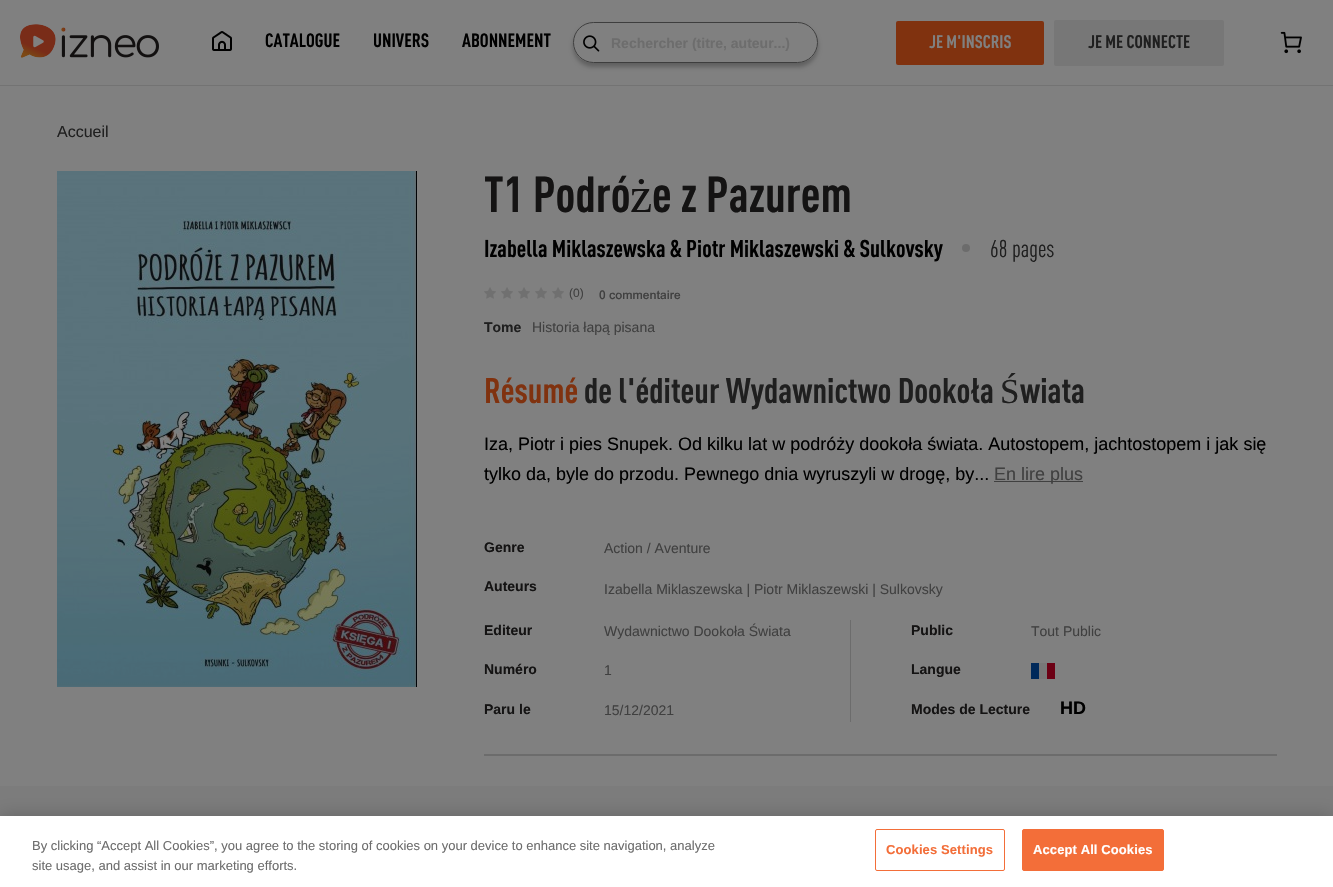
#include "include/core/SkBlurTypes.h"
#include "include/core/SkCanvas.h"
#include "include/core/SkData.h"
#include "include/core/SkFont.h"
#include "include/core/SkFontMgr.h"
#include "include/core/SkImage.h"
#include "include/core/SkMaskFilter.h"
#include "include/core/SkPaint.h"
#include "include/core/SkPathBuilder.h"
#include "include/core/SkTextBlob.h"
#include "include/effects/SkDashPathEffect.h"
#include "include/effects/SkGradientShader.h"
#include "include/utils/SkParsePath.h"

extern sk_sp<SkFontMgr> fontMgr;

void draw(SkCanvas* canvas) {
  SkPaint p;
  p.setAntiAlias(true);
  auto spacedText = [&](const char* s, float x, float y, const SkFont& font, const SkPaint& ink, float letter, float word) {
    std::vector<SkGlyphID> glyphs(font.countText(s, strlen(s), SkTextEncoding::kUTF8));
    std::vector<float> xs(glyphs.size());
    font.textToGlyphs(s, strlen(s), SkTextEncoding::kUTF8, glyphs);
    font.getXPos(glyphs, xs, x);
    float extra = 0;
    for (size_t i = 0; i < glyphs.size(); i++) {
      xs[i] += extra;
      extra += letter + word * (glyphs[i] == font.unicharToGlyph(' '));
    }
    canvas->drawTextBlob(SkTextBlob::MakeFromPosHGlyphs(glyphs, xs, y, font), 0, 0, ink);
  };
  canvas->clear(SkColorSetRGB(128, 128, 128));
  p.setColor(SkColorSetRGB(115, 115, 115));
  canvas->drawRect(SkRect::MakeLTRB(0, 85, 1333, 86), p);
  canvas->drawImageRect(SkImages::DeferredFromEncodedData(SkData::MakeFromFileName("images/1.png")), SkRect::MakeLTRB(20, 24, 159, 58), SkSamplingOptions());
  canvas->drawImageRect(SkImages::DeferredFromEncodedData(SkData::MakeFromFileName("images/2.png")), SkRect::MakeLTRB(212, 31, 232, 51), SkSamplingOptions());
  canvas->save();
  canvas->clipPath(SkPathBuilder(SkPathFillType::kEvenOdd).moveTo(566, 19).lineTo(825, 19).lineTo(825, 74).lineTo(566, 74).close().moveTo(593.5f, 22).lineTo(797.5f, 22).cubicTo(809, 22, 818, 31, 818, 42.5f).cubicTo(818, 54, 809, 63, 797.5f, 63).lineTo(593.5f, 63).cubicTo(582, 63, 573, 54, 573, 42.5f).cubicTo(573, 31, 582, 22, 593.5f, 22).close().detach(), true);
  p.setColor(SkColorSetARGB(64, 0, 0, 0));
  p.setMaskFilter(SkMaskFilter::MakeBlur(kNormal_SkBlurStyle, 2));
  canvas->drawRoundRect(SkRect::MakeLTRB(573, 26, 818, 67), 20.5f, 20.5f, p);
  p.setMaskFilter(nullptr);
  canvas->restore();
  p.setStyle(SkPaint::kStroke_Style);
  p.setStrokeWidth(1);
  p.setColor(SkColorSetRGB(62, 62, 62));
  canvas->drawRoundRect(SkRect::MakeLTRB(573.5f, 22.5f, 817.5f, 62.5f), 20, 20, p);
  canvas->drawImageRect(SkImages::DeferredFromEncodedData(SkData::MakeFromFileName("images/3.png")), SkRect::MakeLTRB(583, 35, 600, 52), SkSamplingOptions());
  p.setStyle(SkPaint::kFill_Style);
  p.setColor(SkColorSetRGB(128, 50, 15));
  canvas->drawRoundRect(SkRect::MakeLTRB(896, 21, 1044, 65), 2, 2, p);
  p.setColor(SkColorSetRGB(119, 119, 119));
  canvas->drawRoundRect(SkRect::MakeLTRB(1054, 20, 1224, 66), 2, 2, p);
  canvas->drawImageRect(SkImages::DeferredFromEncodedData(SkData::MakeFromFileName("images/4.png")), SkRect::MakeLTRB(1280, 31, 1302, 54), SkSamplingOptions());
  canvas->drawImageRect(SkImages::DeferredFromEncodedData(SkData::MakeFromFileName("images/5.png")), SkRect::MakeLTRB(57, 171, 417, 687), SkSamplingOptions());
  p.setColor(SkColorSetRGB(108, 108, 108));
  canvas->drawCircle(966, 248, 4, p);
  canvas->drawImageRect(SkImages::DeferredFromEncodedData(SkData::MakeFromFileName("images/6.png")), SkRect::MakeLTRB(484, 287, 496, 299), SkSamplingOptions());
  canvas->drawImageRect(SkImages::DeferredFromEncodedData(SkData::MakeFromFileName("images/6.png")), SkRect::MakeLTRB(501, 287, 513, 299), SkSamplingOptions());
  canvas->drawImageRect(SkImages::DeferredFromEncodedData(SkData::MakeFromFileName("images/6.png")), SkRect::MakeLTRB(518, 287, 530, 299), SkSamplingOptions());
  canvas->drawImageRect(SkImages::DeferredFromEncodedData(SkData::MakeFromFileName("images/6.png")), SkRect::MakeLTRB(535, 287, 547, 299), SkSamplingOptions());
  canvas->drawImageRect(SkImages::DeferredFromEncodedData(SkData::MakeFromFileName("images/6.png")), SkRect::MakeLTRB(552, 287, 564, 299), SkSamplingOptions());
  p.setColor(SkColorSetRGB(64, 64, 64));
  canvas->drawRect(SkRect::MakeLTRB(994, 481, 1083, 482), p);
  p.setColor(SkColorSetRGB(108, 108, 108));
  canvas->drawRect(SkRect::MakeLTRB(850, 620, 851, 722), p);
  p.setColor(SkColorSetRGB(120, 120, 120));
  canvas->drawRect(SkRect::MakeLTRB(1039, 663, 1047, 679), p);
  p.setColor(SkColorSetRGB(0, 41, 90));
  canvas->drawRect(SkRect::MakeLTRB(1031, 663, 1039, 679), p);
  p.setColor(SkColorSetRGB(108, 0, 20));
  canvas->drawRect(SkRect::MakeLTRB(1047, 663, 1055, 679), p);
  p.setColor(SkColorSetRGB(108, 108, 108));
  canvas->drawRect(SkRect::MakeLTRB(484, 754, 1277, 756), p);
  p.setColor(SkColorSetRGB(124, 124, 124));
  canvas->drawRect(SkRect::MakeLTRB(0, 786, 1333, 816), p);
  p.setColor(SkColorSetARGB(51, 0, 0, 0));
  p.setMaskFilter(SkMaskFilter::MakeBlur(kNormal_SkBlurStyle, 9));
  canvas->drawRect(SkRect::MakeLTRB(0, 816, 1333, 887), p);
  p.setMaskFilter(nullptr);
  p.setColor(SK_ColorWHITE);
  canvas->drawRect(SkRect::MakeLTRB(0, 816, 1333, 887), p);
  p.setStyle(SkPaint::kStroke_Style);
  p.setColor(SkColorSetRGB(243, 110, 57));
  canvas->drawRoundRect(SkRect::MakeLTRB(875.5f, 829.5f, 1004.5f, 870.5f), 1.5f, 1.5f, p);
  p.setStyle(SkPaint::kFill_Style);
  canvas->drawRoundRect(SkRect::MakeLTRB(1022.5f, 829.5f, 1163.5f, 870.5f), 1.5f, 1.5f, p);
  p.setStyle(SkPaint::kStroke_Style);
  canvas->drawRoundRect(SkRect::MakeLTRB(1022.5f, 829.5f, 1163.5f, 870.5f), 1.5f, 1.5f, p);
  SkFont font1(fontMgr->matchFamilyStyle("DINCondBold", SkFontStyle::Bold()), 19);
  font1.setSubpixel(true);
  p.setStyle(SkPaint::kFill_Style);
  p.setColor(SK_ColorBLACK);
  canvas->drawString("CATALOGUE", 265, 47, font1, p);
  canvas->drawString("UNIVERS", 373, 47, font1, p);
  canvas->drawString("ABONNEMENT", 462, 47, font1, p);
  SkFont font2(fontMgr->matchFamilyStyle("Liberation Sans", SkFontStyle::Bold()), 14);
  font2.setSubpixel(true);
  p.setColor(SkColorSetRGB(109, 109, 109));
  canvas->drawString("Rechercher (titre, auteur...)", 611, 48, font2, p);
  SkFont font3(fontMgr->matchFamilyStyle("DINCondBold", SkFontStyle::Bold()), 18);
  font3.setSubpixel(true);
  p.setColor(SkColorSetRGB(128, 128, 128));
  canvas->drawString("JE M'INSCRIS", 929, 48, font3, p);
  p.setColor(SkColorSetRGB(31, 31, 31));
  canvas->drawString("JE ME CONNECTE", 1088, 48, font3, p);
  SkFont font4(fontMgr->matchFamilyStyle("Liberation Sans", SkFontStyle::Normal()), 16);
  font4.setSubpixel(true);
  canvas->drawString("Accueil", 57, 137, font4, p);
  SkFont font5(fontMgr->matchFamilyStyle("DINCondBold", SkFontStyle::Bold()), 50);
  font5.setSubpixel(true);
  p.setColor(SkColorSetRGB(20, 19, 19));
  canvas->drawString("T1 Podró", 484, 212, font5, p);
  SkFont font6(fontMgr->matchFamilyStyle("Liberation Serif", SkFontStyle::Normal()), 50);
  font6.setSubpixel(true);
  canvas->drawString("ż", 630, 212, font6, p);
  canvas->drawString("e z Pazurem", 652, 212, font5, p);
  SkFont font7(fontMgr->matchFamilyStyle("DINCondBold", SkFontStyle::Bold()), 24);
  font7.setSubpixel(true);
  p.setColor(SK_ColorBLACK);
  canvas->drawString("Izabella Miklaszewska & Piotr Miklaszewski & Sulkovsky", 484, 257, font7, p);
  SkFont font8(fontMgr->matchFamilyStyle("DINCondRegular", SkFontStyle::Normal()), 24);
  font8.setSubpixel(true);
  p.setColor(SkColorSetRGB(31, 31, 31));
  canvas->drawString("68 pages", 990, 257, font8, p);
  SkFont font9(fontMgr->matchFamilyStyle("Liberation Sans", SkFontStyle::Normal()), 12);
  font9.setSubpixel(true);
  p.setColor(SkColorSetRGB(64, 64, 64));
  canvas->drawString("(0)", 569, 297, font9, p);
  SkFont font10(fontMgr->matchFamilyStyle("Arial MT", SkFontStyle(500, SkFontStyle::kNormal_Width, SkFontStyle::kUpright_Slant)), 12);
  font10.setSubpixel(true);
  canvas->drawString("0 commentaire", 599, 299, font10, p);
  p.setColor(SkColorSetRGB(31, 31, 31));
  canvas->drawString("Tome", 484, 332, font2, p);
  SkFont font11(fontMgr->matchFamilyStyle("Liberation Sans", SkFontStyle::Normal()), 14);
  font11.setSubpixel(true);
  p.setColor(SkColorSetRGB(64, 64, 64));
  canvas->drawString("Historia łapą pisana", 532, 332, font11, p);
  SkFont font12(fontMgr->matchFamilyStyle("DINCondBold", SkFontStyle::Bold()), 35);
  font12.setSubpixel(true);
  p.setColor(SkColorSetRGB(128, 50, 15));
  canvas->drawString("Résumé", 484, 403, font12, p);
  p.setColor(SkColorSetRGB(31, 31, 31));
  canvas->drawString("de l'éditeur Wydawnictwo Dookoła", 584, 403, font12, p);
  SkFont font13(fontMgr->matchFamilyStyle("Liberation Serif", SkFontStyle::Normal()), 35);
  font13.setSubpixel(true);
  canvas->drawString("Ś", 1000, 403, font13, p);
  canvas->drawString("wiata", 1020, 403, font12, p);
  SkFont font14(fontMgr->matchFamilyStyle("Liberation Sans", SkFontStyle::Normal()), 18);
  font14.setSubpixel(true);
  p.setColor(SK_ColorBLACK);
  canvas->drawString("Iza, Piotr i pies Snupek. Od kilku lat w podróży dookoła świata. Autostopem, jachtostopem i jak się", 484, 450, font14, p);
  canvas->drawString("tylko da, byle do przodu. Pewnego dnia wyruszyli w drogę, by...", 484, 480, font14, p);
  p.setColor(SkColorSetRGB(64, 64, 64));
  canvas->drawString("En lire plus", 994, 480, font14, p);
  p.setColor(SkColorSetRGB(20, 19, 19));
  canvas->drawString("Genre", 484, 552, font2, p);
  p.setColor(SkColorSetRGB(64, 64, 64));
  canvas->drawString("Action / Aventure", 604, 553, font11, p);
  p.setColor(SkColorSetRGB(20, 19, 19));
  canvas->drawString("Auteurs", 484, 591, font2, p);
  p.setColor(SkColorSetRGB(64, 64, 64));
  canvas->drawString("Izabella Miklaszewska | Piotr Miklaszewski | Sulkovsky", 604, 594, font11, p);
  p.setColor(SkColorSetRGB(20, 19, 19));
  canvas->drawString("Editeur", 484, 635, font2, p);
  p.setColor(SkColorSetRGB(64, 64, 64));
  canvas->drawString("Wydawnictwo Dookoła Świata", 604, 636, font11, p);
  p.setColor(SkColorSetRGB(20, 19, 19));
  canvas->drawString("Numéro", 484, 674, font2, p);
  p.setColor(SkColorSetRGB(64, 64, 64));
  canvas->drawString("1", 604, 675, font11, p);
  p.setColor(SkColorSetRGB(20, 19, 19));
  canvas->drawString("Paru le", 484, 714, font2, p);
  p.setColor(SkColorSetRGB(64, 64, 64));
  canvas->drawString("15/12/2021", 604, 715, font11, p);
  p.setColor(SkColorSetRGB(20, 19, 19));
  canvas->drawString("Public", 911, 635, font2, p);
  p.setColor(SkColorSetRGB(64, 64, 64));
  canvas->drawString("Tout Public", 1031, 636, font11, p);
  p.setColor(SkColorSetRGB(20, 19, 19));
  canvas->drawString("Langue", 911, 674, font2, p);
  canvas->drawString("Modes de Lecture", 911, 714, font2, p);
  SkFont font15(fontMgr->matchFamilyStyle("Liberation Sans", SkFontStyle::Bold()), 18);
  font15.setSubpixel(true);
  p.setColor(SK_ColorBLACK);
  canvas->drawString("HD", 1060, 714, font15, p);
  SkFont font16(fontMgr->matchFamilyStyle("Liberation Sans", SkFontStyle::Normal()), 13);
  font16.setSubpixel(true);
  p.setColor(SkColorSetRGB(109, 109, 109));
  canvas->drawString("By clicking “Accept All Cookies”, you agree to the storing of cookies on your device to enhance site navigation, analyze", 32, 850, font16, p);
  canvas->drawString("site usage, and assist in our marketing efforts.", 32, 870, font16, p);
  SkFont font17(fontMgr->matchFamilyStyle("Liberation Sans", SkFontStyle::Bold()), 13);
  font17.setSubpixel(true);
  p.setColor(SkColorSetRGB(243, 110, 57));
  spacedText("Cookies Settings", 886, 854, font17, p, 0.1f, 0);
  p.setColor(SK_ColorWHITE);
  spacedText("Accept All Cookies", 1033, 854, font17, p, 0.1f, 0);
}
